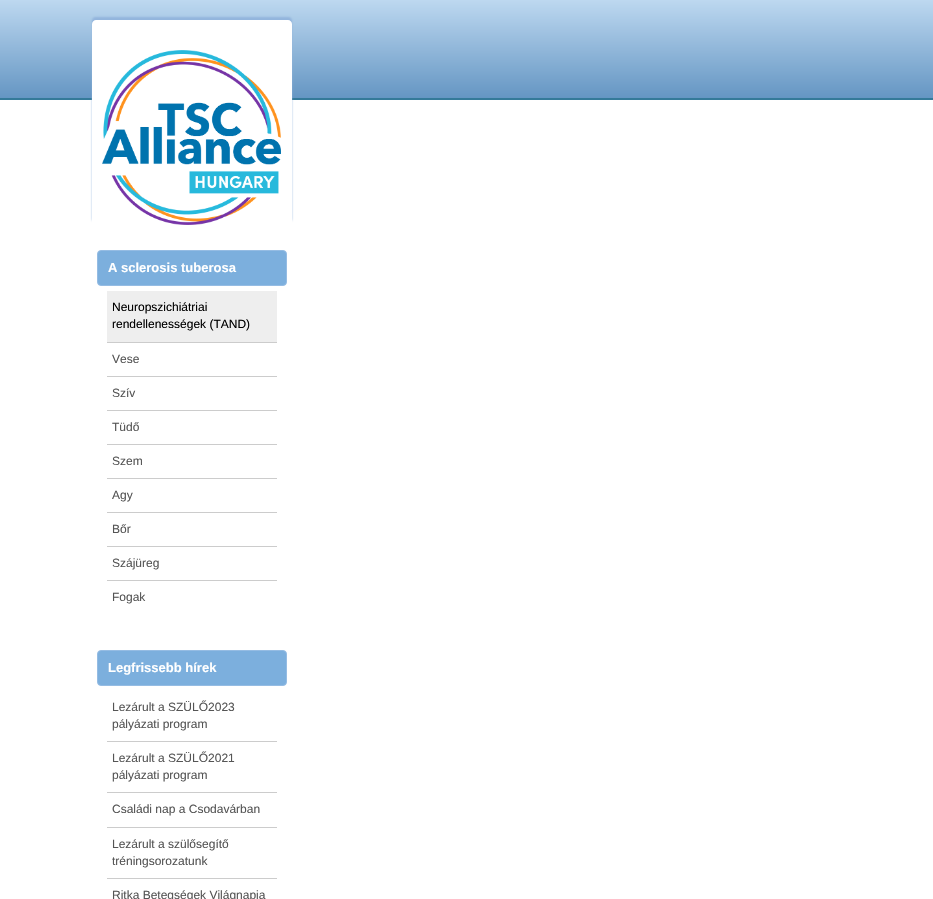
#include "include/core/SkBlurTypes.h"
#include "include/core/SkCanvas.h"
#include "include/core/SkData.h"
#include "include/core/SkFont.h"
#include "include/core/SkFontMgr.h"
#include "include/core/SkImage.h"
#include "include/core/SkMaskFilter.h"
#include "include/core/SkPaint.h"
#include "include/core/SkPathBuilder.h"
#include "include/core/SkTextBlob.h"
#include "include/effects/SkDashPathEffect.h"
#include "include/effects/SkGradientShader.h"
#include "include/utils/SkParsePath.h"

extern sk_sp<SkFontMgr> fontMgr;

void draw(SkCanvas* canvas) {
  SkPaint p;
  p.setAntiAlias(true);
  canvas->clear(SK_ColorWHITE);
  {
    const SkColor colors[] = {SkColorSetRGB(189, 216, 240), SkColorSetRGB(101, 150, 195)};
    const float stops[] = {0, 1};
    const SkPoint ends[] = {{467, 0}, {467, 98}};
    p.setShader(SkGradientShader::MakeLinear(ends, colors, stops, 2, SkTileMode::kClamp));
    p.setAlpha(255);
  }
  canvas->drawRect(SkRect::MakeLTRB(0, 0, 933, 98), p);
  p.setShader(nullptr);
  p.setColor(SkColorSetRGB(52, 122, 153));
  canvas->drawRect(SkRect::MakeLTRB(0, 98, 933, 100), p);
  p.setColor(SkColorSetRGB(147, 181, 221));
  p.setMaskFilter(SkMaskFilter::MakeBlur(kNormal_SkBlurStyle, 1));
  canvas->drawRoundRect(SkRect::MakeLTRB(92, 17, 292, 222), 4, 4, p);
  p.setMaskFilter(nullptr);
  p.setColor(SK_ColorWHITE);
  canvas->drawPath(SkPathBuilder().moveTo(96, 20).lineTo(288, 20).cubicTo(290, 20, 292, 22, 292, 24).lineTo(292, 225).lineTo(92, 225).lineTo(92, 24).cubicTo(92, 22, 94, 20, 96, 20).close().detach(), p);
  canvas->drawImageRect(SkImages::DeferredFromEncodedData(SkData::MakeFromFileName("images/1.png")), SkRect::MakeLTRB(102, 50, 281, 225), SkSamplingOptions());
  p.setColor(SkColorSetRGB(124, 175, 221));
  canvas->drawRoundRect(SkRect::MakeLTRB(97.5f, 250.5f, 286.5f, 285.5f), 3.5f, 3.5f, p);
  p.setStyle(SkPaint::kStroke_Style);
  p.setStrokeWidth(1);
  p.setColor(SkColorSetRGB(149, 188, 227));
  canvas->drawRoundRect(SkRect::MakeLTRB(97.5f, 250.5f, 286.5f, 285.5f), 3.5f, 3.5f, p);
  p.setStyle(SkPaint::kFill_Style);
  p.setColor(SkColorSetRGB(238, 238, 238));
  canvas->drawRect(SkRect::MakeLTRB(107, 291, 277, 342), p);
  p.setColor(SkColorSetRGB(204, 204, 204));
  canvas->drawRect(SkRect::MakeLTRB(107, 342, 277, 343), p);
  canvas->drawRect(SkRect::MakeLTRB(107, 376, 277, 377), p);
  canvas->drawRect(SkRect::MakeLTRB(107, 410, 277, 411), p);
  canvas->drawRect(SkRect::MakeLTRB(107, 444, 277, 445), p);
  canvas->drawRect(SkRect::MakeLTRB(107, 478, 277, 479), p);
  canvas->drawRect(SkRect::MakeLTRB(107, 512, 277, 513), p);
  canvas->drawRect(SkRect::MakeLTRB(107, 546, 277, 547), p);
  canvas->drawRect(SkRect::MakeLTRB(107, 580, 277, 581), p);
  p.setColor(SkColorSetRGB(124, 175, 221));
  canvas->drawRoundRect(SkRect::MakeLTRB(97.5f, 650.5f, 286.5f, 685.5f), 3.5f, 3.5f, p);
  p.setStyle(SkPaint::kStroke_Style);
  p.setColor(SkColorSetRGB(149, 188, 227));
  canvas->drawRoundRect(SkRect::MakeLTRB(97.5f, 650.5f, 286.5f, 685.5f), 3.5f, 3.5f, p);
  p.setStyle(SkPaint::kFill_Style);
  p.setColor(SkColorSetRGB(204, 204, 204));
  canvas->drawRect(SkRect::MakeLTRB(107, 741, 277, 742), p);
  canvas->drawRect(SkRect::MakeLTRB(107, 792, 277, 793), p);
  canvas->drawRect(SkRect::MakeLTRB(107, 827, 277, 828), p);
  canvas->drawRect(SkRect::MakeLTRB(107, 878, 277, 879), p);
  SkFont font1(fontMgr->matchFamilyStyle("Liberation Sans", SkFontStyle::Bold()), 13);
  font1.setSubpixel(true);
  p.setColor(SK_ColorWHITE);
  canvas->drawString("A sclerosis tuberosa", 108, 272, font1, p);
  SkFont font2(fontMgr->matchFamilyStyle("Liberation Sans", SkFontStyle::Normal()), 12);
  font2.setSubpixel(true);
  p.setColor(SK_ColorBLACK);
  canvas->drawString("Neuropszichiátriai", 112, 311, font2, p);
  canvas->drawString("rendellenességek (TAND)", 112, 328, font2, p);
  p.setColor(SkColorSetRGB(85, 85, 85));
  canvas->drawString("Vese", 112, 363, font2, p);
  canvas->drawString("Szív", 112, 397, font2, p);
  canvas->drawString("Tüdő", 112, 431, font2, p);
  canvas->drawString("Szem", 112, 465, font2, p);
  canvas->drawString("Agy", 112, 499, font2, p);
  canvas->drawString("Bőr", 112, 533, font2, p);
  canvas->drawString("Szájüreg", 112, 567, font2, p);
  canvas->drawString("Fogak", 112, 601, font2, p);
  p.setColor(SK_ColorWHITE);
  canvas->drawString("Legfrissebb hírek", 108, 672, font1, p);
  p.setColor(SkColorSetRGB(85, 85, 85));
  canvas->drawString("Lezárult a SZÜLŐ2023", 112, 711, font2, p);
  canvas->drawString("pályázati program", 112, 728, font2, p);
  canvas->drawString("Lezárult a SZÜLŐ2021", 112, 762, font2, p);
  canvas->drawString("pályázati program", 112, 779, font2, p);
  canvas->drawString("Családi nap a Csodavárban", 112, 813, font2, p);
  canvas->drawString("Lezárult a szülősegítő", 112, 848, font2, p);
  canvas->drawString("tréningsorozatunk", 112, 865, font2, p);
  canvas->drawString("Ritka Betegségek Világnapja", 112, 899, font2, p);
}
